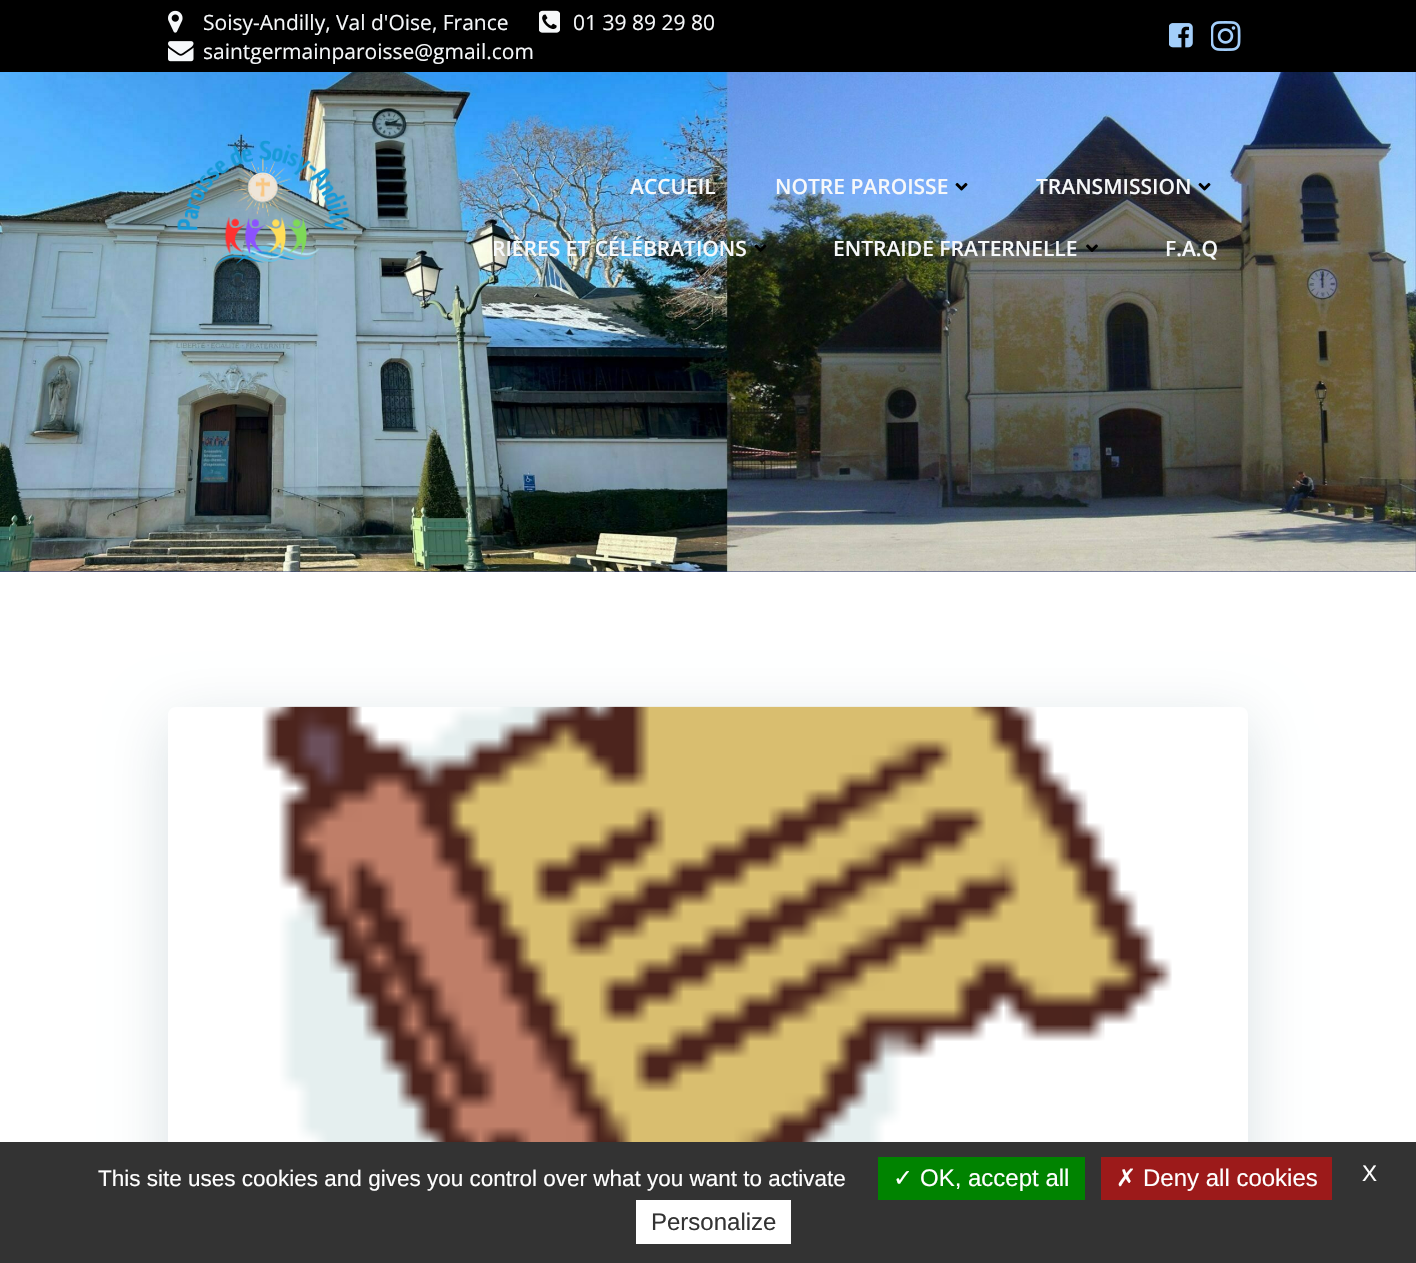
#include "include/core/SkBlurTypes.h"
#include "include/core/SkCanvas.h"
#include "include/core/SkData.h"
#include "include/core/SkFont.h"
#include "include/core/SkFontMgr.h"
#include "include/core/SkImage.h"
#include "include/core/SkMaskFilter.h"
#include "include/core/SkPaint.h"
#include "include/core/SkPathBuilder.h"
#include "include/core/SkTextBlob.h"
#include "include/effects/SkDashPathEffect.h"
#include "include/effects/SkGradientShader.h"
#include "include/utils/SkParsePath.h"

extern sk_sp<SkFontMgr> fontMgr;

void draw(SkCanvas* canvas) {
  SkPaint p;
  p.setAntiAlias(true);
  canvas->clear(SK_ColorWHITE);
  p.setColor(SK_ColorBLACK);
  canvas->drawRect(SkRect::MakeLTRB(0, 0, 1416, 72), p);
  canvas->drawImageRect(SkImages::DeferredFromEncodedData(SkData::MakeFromFileName("images/1.png")), SkRect::MakeLTRB(168, 10, 183, 33), SkSamplingOptions());
  canvas->drawImageRect(SkImages::DeferredFromEncodedData(SkData::MakeFromFileName("images/2.png")), SkRect::MakeLTRB(539, 10, 560, 33), SkSamplingOptions());
  canvas->drawImageRect(SkImages::DeferredFromEncodedData(SkData::MakeFromFileName("images/3.png")), SkRect::MakeLTRB(168, 41, 194, 62), SkSamplingOptions());
  canvas->drawImageRect(SkImages::DeferredFromEncodedData(SkData::MakeFromFileName("images/4.png")), SkRect::MakeLTRB(1169, 23, 1193, 48), SkSamplingOptions());
  canvas->drawImageRect(SkImages::DeferredFromEncodedData(SkData::MakeFromFileName("images/5.png")), SkRect::MakeLTRB(1211, 21, 1241, 51), SkSamplingOptions());
  p.setColor(SkColorSetRGB(48, 62, 122));
  canvas->drawRect(SkRect::MakeLTRB(0, 571, 1416, 572), p);
  canvas->drawImageRect(SkImages::DeferredFromEncodedData(SkData::MakeFromFileName("images/11.png")), SkRect::MakeLTRB(0, 72, 1416, 572), SkSamplingOptions());
  canvas->drawImageRect(SkImages::DeferredFromEncodedData(SkData::MakeFromFileName("images/6.png")), SkRect::MakeLTRB(177, 140, 350, 267), SkSamplingOptions());
  canvas->drawImageRect(SkImages::DeferredFromEncodedData(SkData::MakeFromFileName("images/7.png")), SkRect::MakeLTRB(955, 182, 968, 191), SkSamplingOptions());
  canvas->drawImageRect(SkImages::DeferredFromEncodedData(SkData::MakeFromFileName("images/8.png")), SkRect::MakeLTRB(1198, 182, 1211, 191), SkSamplingOptions());
  canvas->drawImageRect(SkImages::DeferredFromEncodedData(SkData::MakeFromFileName("images/9.png")), SkRect::MakeLTRB(754, 244, 767, 252), SkSamplingOptions());
  canvas->drawImageRect(SkImages::DeferredFromEncodedData(SkData::MakeFromFileName("images/10.png")), SkRect::MakeLTRB(1086, 244, 1098, 252), SkSamplingOptions());
  canvas->save();
  canvas->clipPath(SkPathBuilder(SkPathFillType::kEvenOdd).moveTo(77, 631).lineTo(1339, 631).lineTo(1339, 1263).lineTo(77, 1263).close().moveTo(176, 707).lineTo(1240, 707).cubicTo(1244.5f, 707, 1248, 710.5f, 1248, 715).lineTo(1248, 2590).cubicTo(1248, 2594.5f, 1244.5f, 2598, 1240, 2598).lineTo(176, 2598).cubicTo(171.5f, 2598, 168, 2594.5f, 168, 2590).lineTo(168, 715).cubicTo(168, 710.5f, 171.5f, 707, 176, 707).close().detach(), true);
  p.setColor(SkColorSetARGB(38, 1, 51, 74));
  p.setMaskFilter(SkMaskFilter::MakeBlur(kNormal_SkBlurStyle, 30));
  canvas->drawRoundRect(SkRect::MakeLTRB(168, 722, 1248, 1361), 8, 8, p);
  p.setMaskFilter(nullptr);
  canvas->restore();
  canvas->drawImageRect(SkImages::DeferredFromEncodedData(SkData::MakeFromFileName("images/12.png")), SkRect::MakeLTRB(262, 706, 1172, 1142), SkSamplingOptions());
  p.setColor(SkColorSetRGB(51, 51, 51));
  canvas->drawRect(SkRect::MakeLTRB(0, 1142, 1416, 1263), p);
  p.setColor(SkColorSetRGB(0, 131, 0));
  canvas->drawRect(SkRect::MakeLTRB(878, 1157, 1085, 1200), p);
  p.setColor(SkColorSetRGB(156, 26, 26));
  canvas->drawRect(SkRect::MakeLTRB(1101, 1157, 1332, 1200), p);
  p.setColor(SK_ColorWHITE);
  canvas->drawRect(SkRect::MakeLTRB(636, 1200, 791, 1244), p);
  SkFont font1(fontMgr->matchFamilyStyle("Open Sans", SkFontStyle::Normal()), 21);
  font1.setSubpixel(true);
  p.setColor(SkColorSetRGB(246, 248, 250));
  canvas->drawString("Soisy-Andilly, Val d'Oise, France", 203, 30, font1, p);
  canvas->drawString("01 39 89 29 80", 573, 30, font1, p);
  canvas->drawString("saintgermainparoisse@gmail.com", 203, 59, font1, p);
  SkFont font2(fontMgr->matchFamilyStyle("Open Sans", SkFontStyle(600, SkFontStyle::kNormal_Width, SkFontStyle::kUpright_Slant)), 21);
  font2.setSubpixel(true);
  canvas->drawString("ACCUEIL", 630, 194, font2, p);
  canvas->drawString("NOTRE PAROISSE", 775, 194, font2, p);
  canvas->drawString("TRANSMISSION", 1036, 194, font2, p);
  canvas->drawString("RIÈRES ET CÉLÉBRATIONS", 492, 256, font2, p);
  canvas->drawString("ENTRAIDE FRATERNELLE", 833, 256, font2, p);
  canvas->drawString("F.A.Q", 1165, 256, font2, p);
  SkFont font3(fontMgr->matchFamilyStyle("Liberation Sans", SkFontStyle::Normal()), 22.5f);
  font3.setSubpixel(true);
  p.setColor(SK_ColorWHITE);
  canvas->drawString("This site uses cookies and gives you control over what you want to activate", 98, 1186, font3, p);
  SkFont font4(fontMgr->matchFamilyStyle("DejaVu Sans", SkFontStyle::Normal()), 24);
  font4.setSubpixel(true);
  canvas->drawString("✓", 893, 1186, font4, p);
  SkFont font5(fontMgr->matchFamilyStyle("Liberation Sans", SkFontStyle::Normal()), 24);
  font5.setSubpixel(true);
  canvas->drawString("OK, accept all", 920, 1186, font5, p);
  canvas->drawString("✗", 1116, 1186, font4, p);
  canvas->drawString("Deny all cookies", 1143, 1186, font5, p);
  canvas->drawString("X", 1362, 1181, font3, p);
  p.setColor(SkColorSetRGB(51, 51, 51));
  canvas->drawString("Personalize", 651, 1230, font5, p);
}
